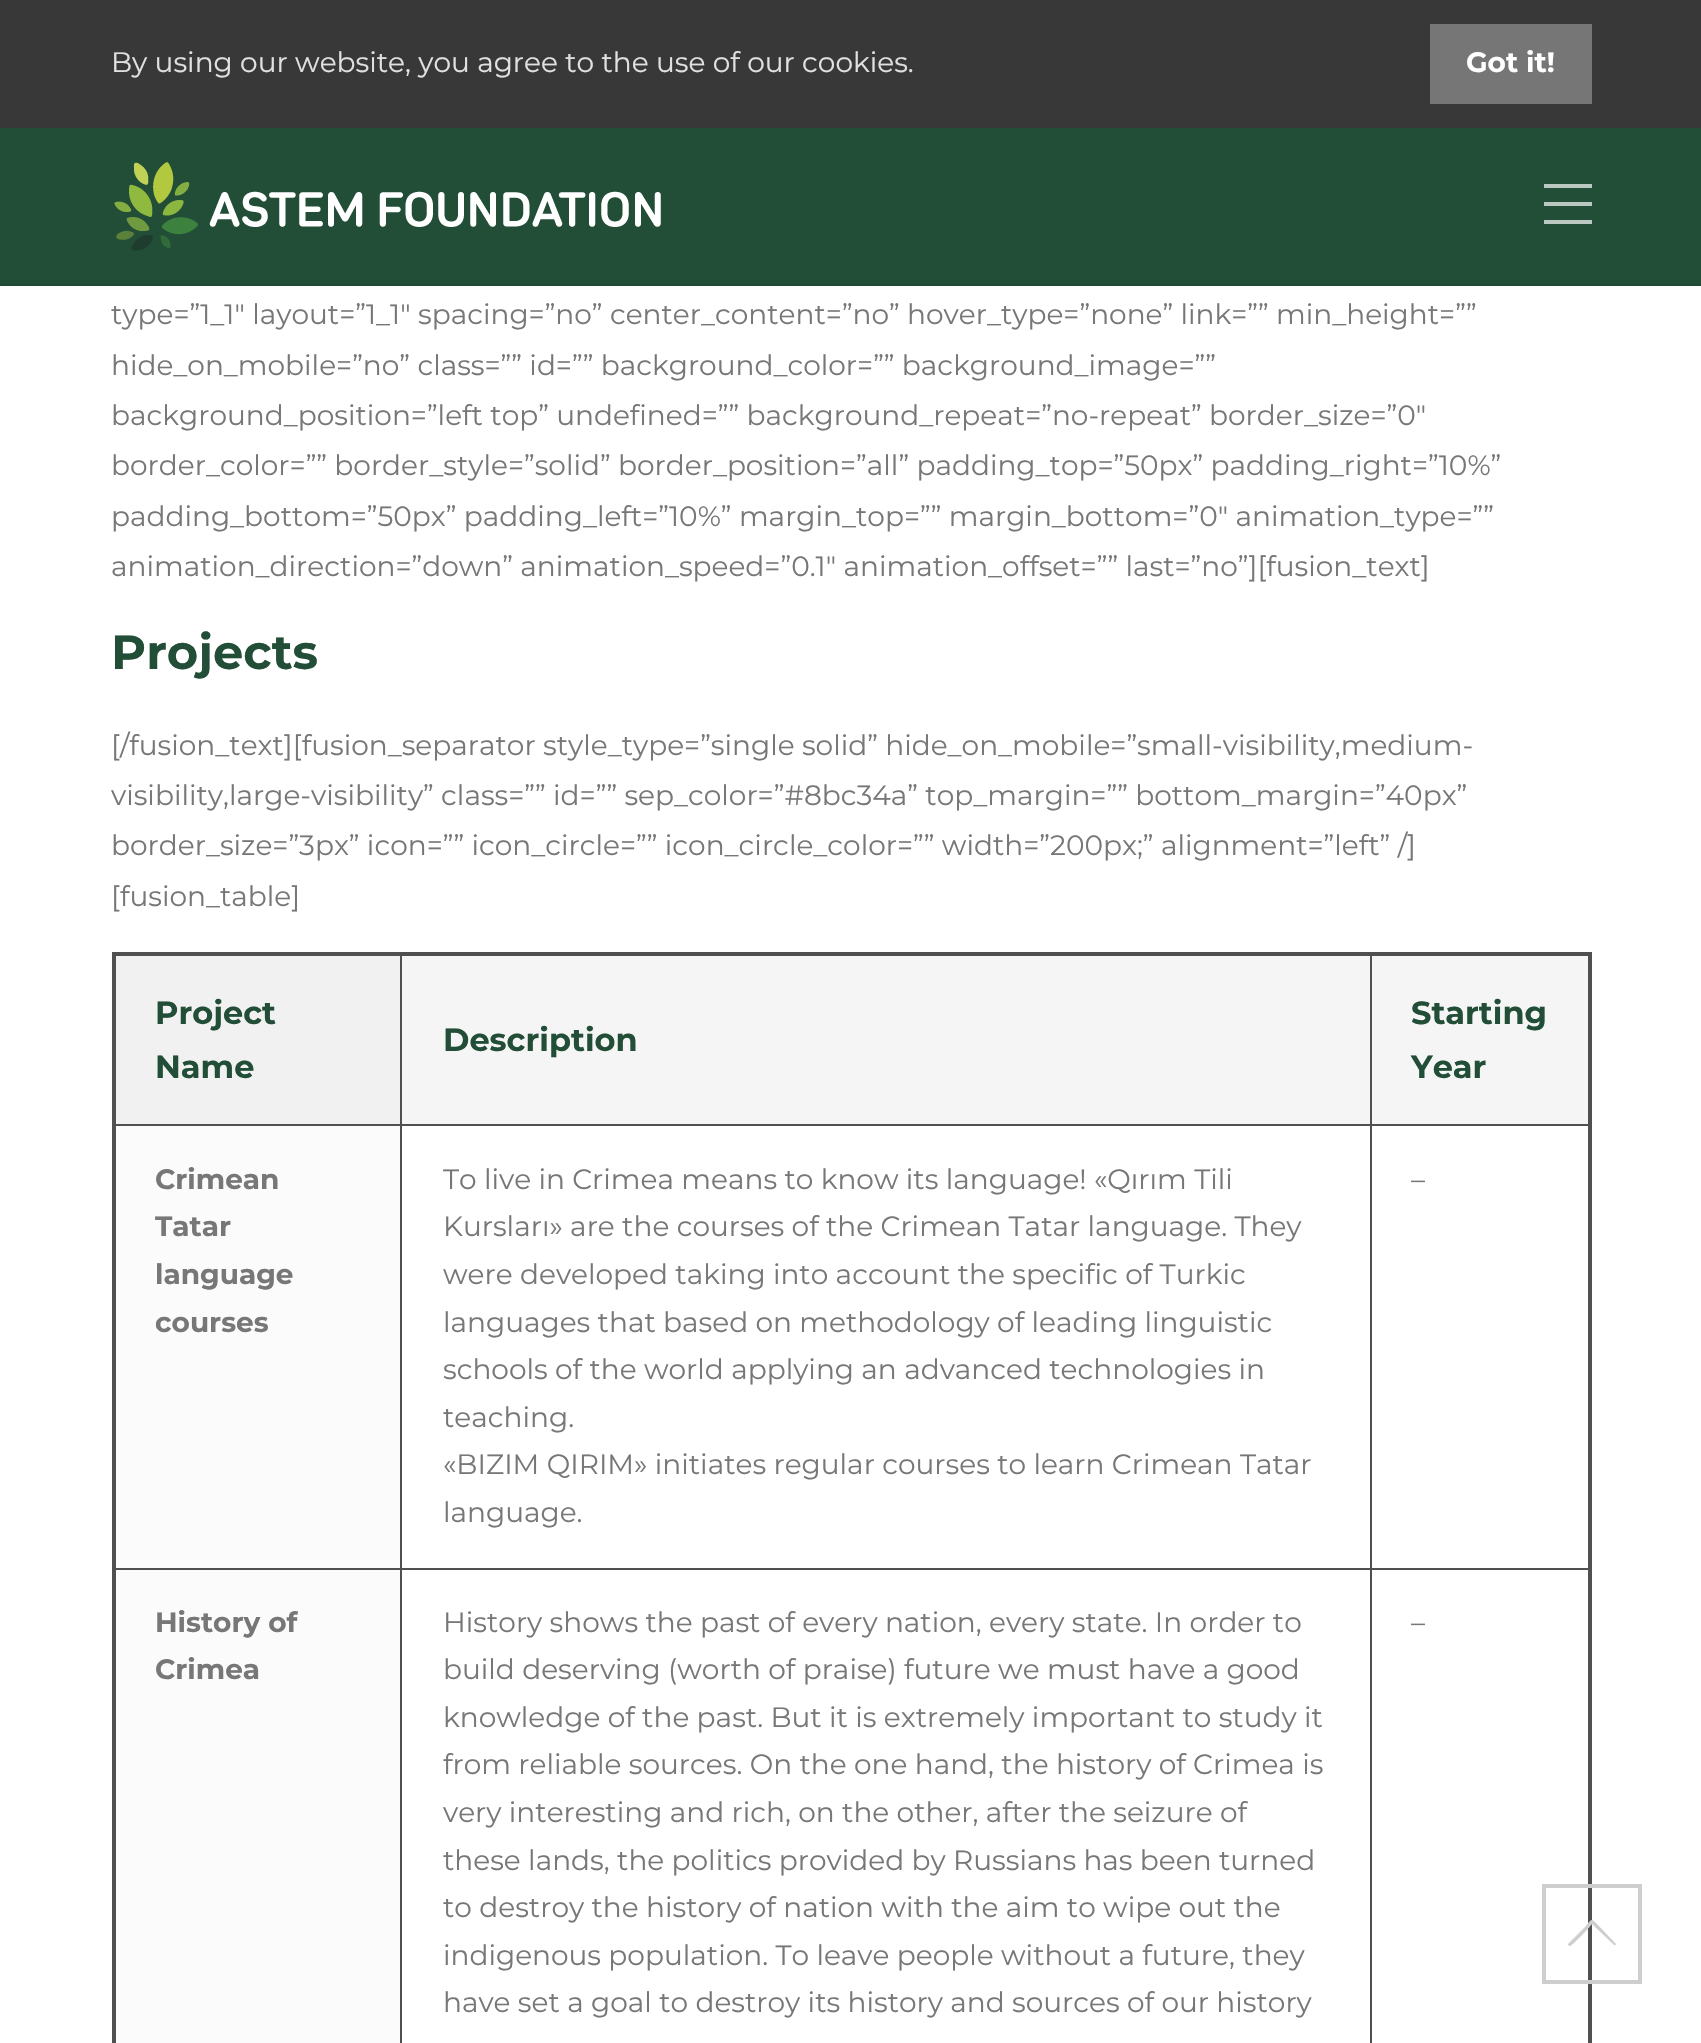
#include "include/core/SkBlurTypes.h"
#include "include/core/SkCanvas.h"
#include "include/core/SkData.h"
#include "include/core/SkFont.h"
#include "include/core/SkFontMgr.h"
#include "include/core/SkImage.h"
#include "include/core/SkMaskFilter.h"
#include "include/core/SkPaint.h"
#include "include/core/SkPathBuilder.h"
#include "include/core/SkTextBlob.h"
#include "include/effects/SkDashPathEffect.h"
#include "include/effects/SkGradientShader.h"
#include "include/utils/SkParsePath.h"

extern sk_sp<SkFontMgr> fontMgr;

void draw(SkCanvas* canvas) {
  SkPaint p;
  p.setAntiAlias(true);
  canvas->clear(SK_ColorWHITE);
  p.setColor(SkColorSetRGB(34, 78, 56));
  canvas->drawRect(SkRect::MakeLTRB(0, 128, 1701, 284), p);
  p.setColor(SkColorSetRGB(31, 72, 52));
  canvas->drawRect(SkRect::MakeLTRB(0, 284, 1701, 286), p);
  p.setColor(SkColorSetRGB(56, 56, 56));
  canvas->drawRect(SkRect::MakeLTRB(0, 0, 1701, 128), p);
  p.setColor(SkColorSetRGB(118, 118, 118));
  canvas->drawRect(SkRect::MakeLTRB(1430, 24, 1592, 104), p);
  canvas->drawImageRect(SkImages::DeferredFromEncodedData(SkData::MakeFromFileName("images/1.png")), SkRect::MakeLTRB(114, 162, 661, 251), SkSamplingOptions());
  p.setColor(SkColorSetRGB(186, 200, 193));
  canvas->drawRect(SkRect::MakeLTRB(1544, 202, 1592, 206), p);
  canvas->drawRect(SkRect::MakeLTRB(1544, 184, 1592, 188), p);
  canvas->drawRect(SkRect::MakeLTRB(1544, 220, 1592, 224), p);
  p.setColor(SkColorSetRGB(80, 80, 80));
  canvas->drawRect(SkRect::MakeLTRB(1370, 1124, 1590, 1126), p);
  canvas->drawRect(SkRect::MakeLTRB(1370, 1568, 1590, 1570), p);
  canvas->drawRect(SkRect::MakeLTRB(1370, 1568, 1372, 2043), p);
  canvas->drawRect(SkRect::MakeLTRB(400, 1568, 1372, 1570), p);
  canvas->drawRect(SkRect::MakeLTRB(1370, 1124, 1372, 1570), p);
  canvas->drawRect(SkRect::MakeLTRB(400, 1124, 1372, 1126), p);
  canvas->drawRect(SkRect::MakeLTRB(400, 1568, 402, 2043), p);
  p.setColor(SkColorSetRGB(251, 251, 251));
  canvas->drawRect(SkRect::MakeLTRB(116, 1126, 400, 2043), p);
  p.setColor(SkColorSetRGB(80, 80, 80));
  canvas->drawRect(SkRect::MakeLTRB(112, 1568, 402, 1570), p);
  canvas->drawRect(SkRect::MakeLTRB(400, 1124, 402, 1570), p);
  canvas->drawRect(SkRect::MakeLTRB(112, 1124, 402, 1126), p);
  canvas->drawRect(SkRect::MakeLTRB(400, 954, 402, 1126), p);
  canvas->drawRect(SkRect::MakeLTRB(1370, 954, 1372, 1126), p);
  canvas->drawRect(SkRect::MakeLTRB(112, 952, 1592, 956), p);
  canvas->drawRect(SkRect::MakeLTRB(1588, 952, 1592, 2043), p);
  canvas->drawRect(SkRect::MakeLTRB(112, 952, 116, 2043), p);
  p.setColor(SkColorSetRGB(241, 241, 241));
  canvas->drawRect(SkRect::MakeLTRB(116, 956, 400, 1124), p);
  p.setColor(SkColorSetRGB(245, 245, 245));
  canvas->drawRect(SkRect::MakeLTRB(402, 956, 1370, 1124), p);
  canvas->drawRect(SkRect::MakeLTRB(1372, 956, 1588, 1124), p);
  p.setStyle(SkPaint::kStroke_Style);
  p.setStrokeWidth(4);
  p.setColor(SkColorSetRGB(206, 206, 206));
  canvas->drawRect(SkRect::MakeLTRB(1544, 1886, 1640, 1982), p);
  p.setStyle(SkPaint::kFill_Style);
  canvas->drawPath(SkPathBuilder().moveTo(1568, 1944).cubicTo(1568, 1945, 1569, 1946, 1570, 1946).cubicTo(1572, 1946, 1590, 1927, 1592, 1924).lineTo(1614, 1945).cubicTo(1615, 1946, 1617, 1944, 1615, 1943).lineTo(1597, 1924).cubicTo(1590, 1917, 1592, 1920, 1584, 1928).close().detach(), p);
  SkFont font1(fontMgr->matchFamilyStyle("Montserrat", SkFontStyle::Normal()), 28);
  font1.setSubpixel(true);
  p.setColor(SkColorSetRGB(226, 225, 225));
  canvas->drawString("By using our website, you agree to the use of our cookies.", 111, 72, font1, p);
  SkFont font2(fontMgr->matchFamilyStyle("Montserrat", SkFontStyle::Bold()), 28);
  font2.setSubpixel(true);
  p.setColor(SK_ColorWHITE);
  canvas->drawString("Got it!", 1466, 72, font2, p);
  p.setColor(SkColorSetRGB(119, 119, 119));
  canvas->drawString("type=”1_1″ layout=”1_1″ spacing=”no” center_content=”no” hover_type=”none” link=”” min_height=””", 111, 324, font1, p);
  canvas->drawString("hide_on_mobile=”no” class=”” id=”” background_color=”” background_image=””", 111, 375, font1, p);
  canvas->drawString("background_position=”left top” undefined=”” background_repeat=”no-repeat” border_size=”0″", 111, 425, font1, p);
  canvas->drawString("border_color=”” border_style=”solid” border_position=”all” padding_top=”50px” padding_right=”10%”", 111, 475, font1, p);
  canvas->drawString("padding_bottom=”50px” padding_left=”10%” margin_top=”” margin_bottom=”0″ animation_type=””", 111, 526, font1, p);
  canvas->drawString("animation_direction=”down” animation_speed=”0.1″ animation_offset=”” last=”no”][fusion_text]", 111, 576, font1, p);
  SkFont font3(fontMgr->matchFamilyStyle("Montserrat", SkFontStyle::Bold()), 48);
  font3.setSubpixel(true);
  p.setColor(SkColorSetRGB(34, 78, 56));
  canvas->drawString("Projects", 111, 669, font3, p);
  p.setColor(SkColorSetRGB(119, 119, 119));
  canvas->drawString("[/fusion_text][fusion_separator style_type=”single solid” hide_on_mobile=”small-visibility,medium-", 111, 755, font1, p);
  canvas->drawString("visibility,large-visibility” class=”” id=”” sep_color=”#8bc34a” top_margin=”” bottom_margin=”40px”", 111, 805, font1, p);
  canvas->drawString("border_size=”3px” icon=”” icon_circle=”” icon_circle_color=”” width=”200px;” alignment=”left” /]", 111, 855, font1, p);
  canvas->drawString("[fusion_table]", 111, 906, font1, p);
  SkFont font4(fontMgr->matchFamilyStyle("Montserrat", SkFontStyle::Bold()), 32);
  font4.setSubpixel(true);
  p.setColor(SkColorSetRGB(34, 78, 56));
  canvas->drawString("Project", 155, 1024, font4, p);
  canvas->drawString("Name", 155, 1078, font4, p);
  canvas->drawString("Description", 443, 1051, font4, p);
  canvas->drawString("Starting", 1411, 1024, font4, p);
  canvas->drawString("Year", 1411, 1078, font4, p);
  p.setColor(SkColorSetRGB(119, 119, 119));
  canvas->drawString("Crimean", 155, 1189, font2, p);
  canvas->drawString("Tatar", 155, 1236, font2, p);
  canvas->drawString("language", 155, 1284, font2, p);
  canvas->drawString("courses", 155, 1332, font2, p);
  canvas->drawString("To live in Crimea means to know its language! «Qırım Tili", 443, 1189, font1, p);
  canvas->drawString("Kursları» are the courses of the Crimean Tatar language. They", 443, 1236, font1, p);
  canvas->drawString("were developed taking into account the specific of Turkic", 443, 1284, font1, p);
  canvas->drawString("languages that based on methodology of leading linguistic", 443, 1332, font1, p);
  canvas->drawString("schools of the world applying an advanced technologies in", 443, 1379, font1, p);
  canvas->drawString("teaching.", 443, 1427, font1, p);
  canvas->drawString("«BIZIM QIRIM» initiates regular courses to learn Crimean Tatar", 443, 1474, font1, p);
  canvas->drawString("language.", 443, 1522, font1, p);
  canvas->drawString("–", 1411, 1189, font1, p);
  canvas->drawString("History of", 155, 1632, font2, p);
  canvas->drawString("Crimea", 155, 1679, font2, p);
  canvas->drawString("History shows the past of every nation, every state. In order to", 443, 1632, font1, p);
  canvas->drawString("build deserving (worth of praise) future we must have a good", 443, 1679, font1, p);
  canvas->drawString("knowledge of the past. But it is extremely important to study it", 443, 1727, font1, p);
  canvas->drawString("from reliable sources. On the one hand, the history of Crimea is", 443, 1774, font1, p);
  canvas->drawString("very interesting and rich, on the other, after the seizure of", 443, 1822, font1, p);
  canvas->drawString("these lands, the politics provided by Russians has been turned", 443, 1870, font1, p);
  canvas->drawString("to destroy the history of nation with the aim to wipe out the", 443, 1917, font1, p);
  canvas->drawString("indigenous population. To leave people without a future, they", 443, 1965, font1, p);
  canvas->drawString("have set a goal to destroy its history and sources of our history", 443, 2012, font1, p);
  canvas->drawString("–", 1411, 1632, font1, p);
}
